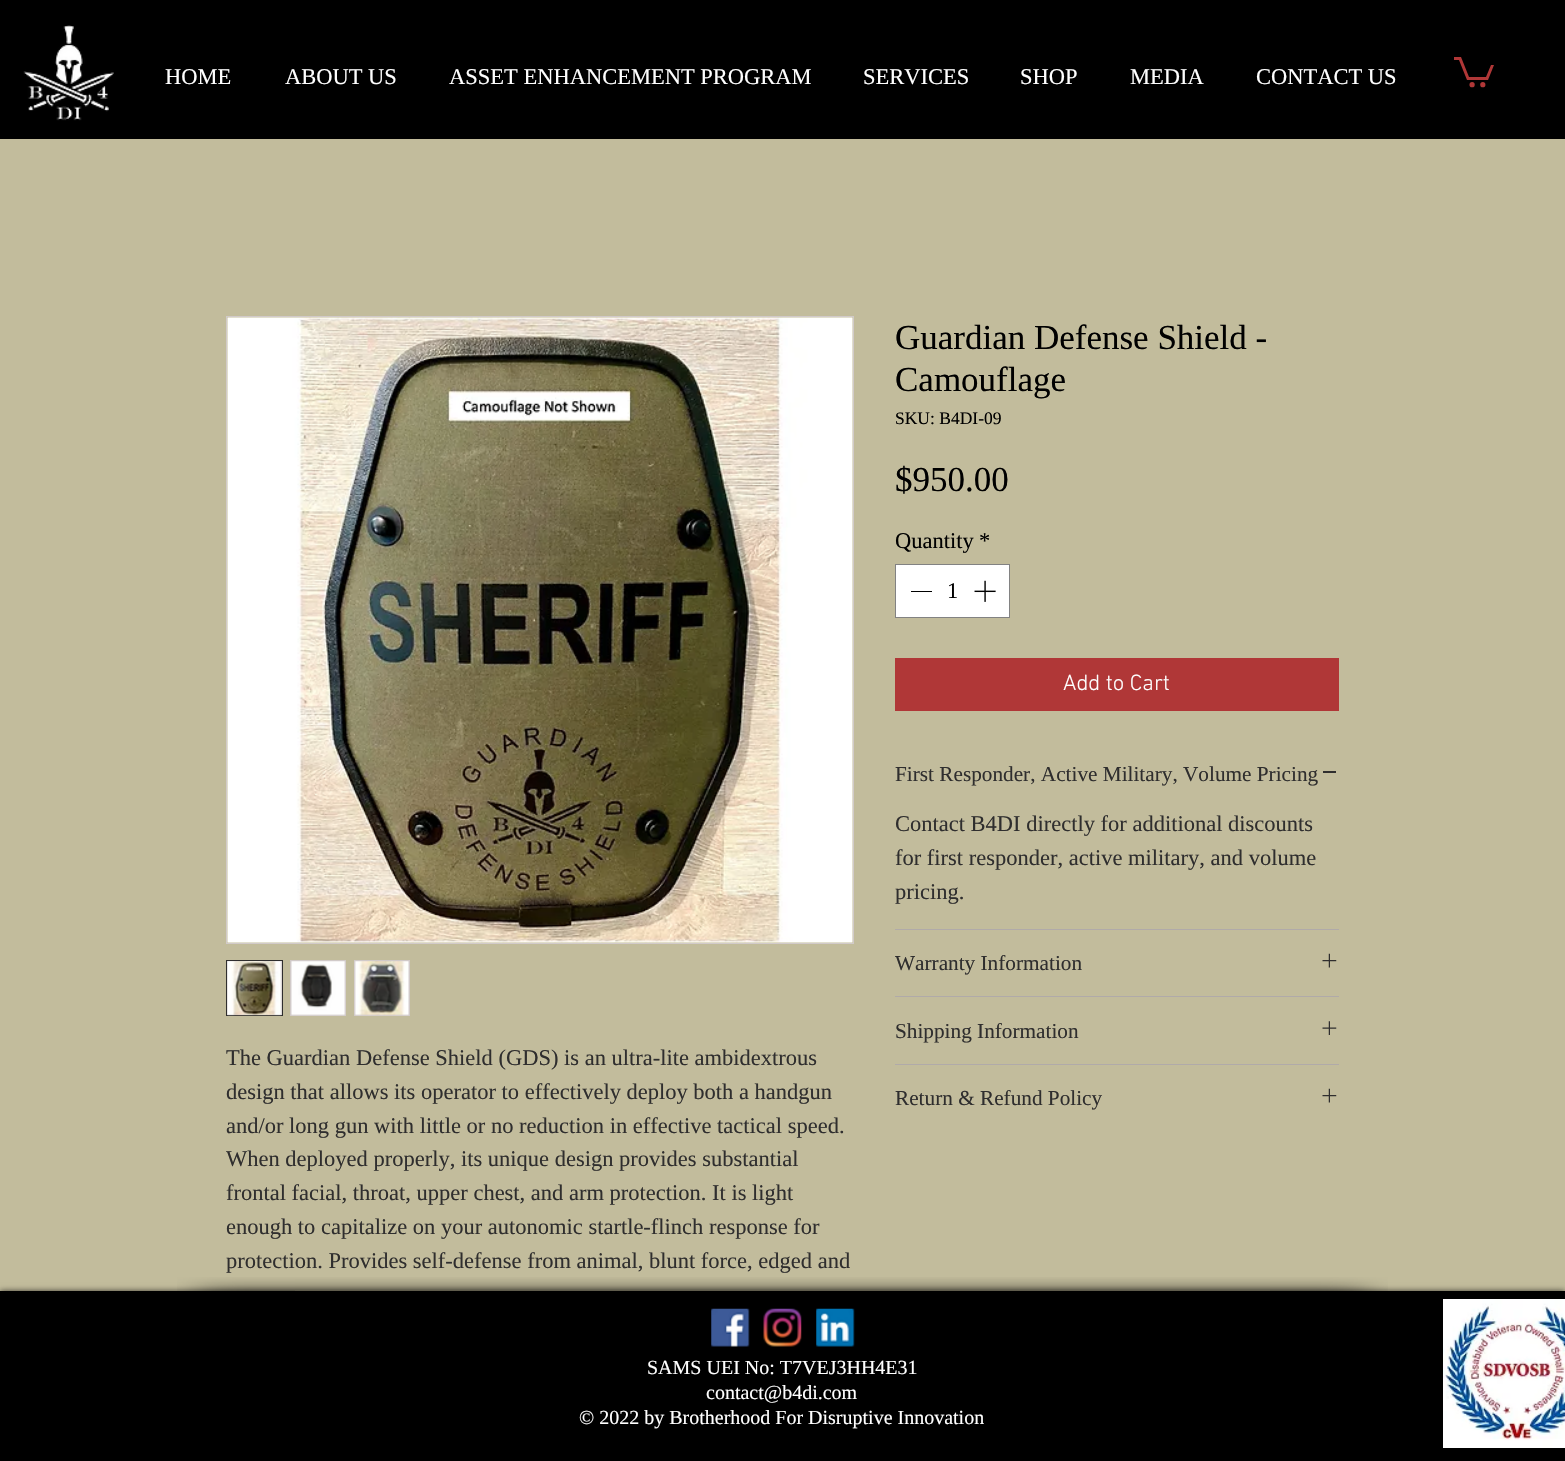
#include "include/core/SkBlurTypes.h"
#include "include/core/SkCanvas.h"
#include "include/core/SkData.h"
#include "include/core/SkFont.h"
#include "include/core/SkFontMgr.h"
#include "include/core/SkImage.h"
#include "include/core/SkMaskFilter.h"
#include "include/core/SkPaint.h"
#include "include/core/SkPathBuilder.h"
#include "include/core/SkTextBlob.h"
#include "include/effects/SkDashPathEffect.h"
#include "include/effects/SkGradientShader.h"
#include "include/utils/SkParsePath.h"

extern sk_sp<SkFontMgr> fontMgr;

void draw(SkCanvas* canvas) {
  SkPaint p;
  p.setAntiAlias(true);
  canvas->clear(SkColorSetRGB(194, 188, 156));
  p.setColor(SK_ColorBLACK);
  canvas->drawRect(SkRect::MakeLTRB(0, 0, 1565, 139), p);
  canvas->drawImageRect(SkImages::DeferredFromEncodedData(SkData::MakeFromFileName("images/1.png")), SkRect::MakeLTRB(23, 25, 114, 121), SkSamplingOptions());
  p.setColor(SkColorSetRGB(176, 55, 55));
  canvas->drawPath(SkPathBuilder().moveTo(1494, 65).lineTo(1488, 80).lineTo(1467, 80).lineTo(1459, 60).lineTo(1454, 60).lineTo(1454, 57).lineTo(1461, 57).lineTo(1469, 77).lineTo(1486, 77).lineTo(1491, 65).detach(), p);
  canvas->drawCircle(1482.8f, 84.7f, 2.6f, p);
  canvas->drawCircle(1472.1f, 84.7f, 2.6f, p);
  p.setColor(SK_ColorWHITE);
  canvas->drawRect(SkRect::MakeLTRB(895.5f, 564.5f, 1009.5f, 617.5f), p);
  p.setStyle(SkPaint::kStroke_Style);
  p.setStrokeWidth(1);
  p.setColor(SkColorSetRGB(130, 130, 130));
  canvas->drawRect(SkRect::MakeLTRB(895.5f, 564.5f, 1009.5f, 617.5f), p);
  p.setStyle(SkPaint::kFill_Style);
  p.setColor(SK_ColorBLACK);
  canvas->drawRect(SkRect::MakeLTRB(911, 591, 932, 592), p);
  canvas->drawImageRect(SkImages::DeferredFromEncodedData(SkData::MakeFromFileName("images/2.png")), SkRect::MakeLTRB(974, 580, 996, 602), SkSamplingOptions());
  p.setColor(SkColorSetRGB(176, 55, 55));
  canvas->drawRect(SkRect::MakeLTRB(895, 658, 1339, 711), p);
  p.setColor(SkColorSetRGB(176, 170, 169));
  canvas->drawRect(SkRect::MakeLTRB(895, 929, 1339, 930), p);
  p.setColor(SkColorSetRGB(47, 46, 46));
  canvas->drawRect(SkRect::MakeLTRB(1323, 771, 1336, 773), p);
  p.setColor(SkColorSetRGB(176, 170, 169));
  canvas->drawRect(SkRect::MakeLTRB(895, 996, 1339, 997), p);
  canvas->drawImageRect(SkImages::DeferredFromEncodedData(SkData::MakeFromFileName("images/3.png")), SkRect::MakeLTRB(1322, 953, 1337, 968), SkSamplingOptions());
  canvas->drawRect(SkRect::MakeLTRB(895, 1064, 1339, 1065), p);
  canvas->drawImageRect(SkImages::DeferredFromEncodedData(SkData::MakeFromFileName("images/4.png")), SkRect::MakeLTRB(1322, 1021, 1337, 1035), SkSamplingOptions());
  canvas->drawImageRect(SkImages::DeferredFromEncodedData(SkData::MakeFromFileName("images/3.png")), SkRect::MakeLTRB(1322, 1088, 1337, 1103), SkSamplingOptions());
  p.setStyle(SkPaint::kStroke_Style);
  p.setColor(SkColorSetRGB(209, 202, 201));
  canvas->drawRect(SkRect::MakeLTRB(226.5f, 316.5f, 853.5f, 943.5f), p);
  canvas->drawImageRect(SkImages::DeferredFromEncodedData(SkData::MakeFromFileName("images/5.png")), SkRect::MakeLTRB(227, 317, 853, 943), SkSamplingOptions());
  p.setStyle(SkPaint::kFill_Style);
  canvas->drawRect(SkRect::MakeLTRB(226.5f, 960.5f, 282.5f, 1015.5f), p);
  p.setStyle(SkPaint::kStroke_Style);
  p.setColor(SkColorSetRGB(47, 46, 46));
  canvas->drawRect(SkRect::MakeLTRB(226.5f, 960.5f, 282.5f, 1015.5f), p);
  canvas->drawImageRect(SkImages::DeferredFromEncodedData(SkData::MakeFromFileName("images/6.png")), SkRect::MakeLTRB(227, 961, 282, 1016), SkSamplingOptions());
  p.setStyle(SkPaint::kFill_Style);
  p.setColor(SkColorSetRGB(209, 202, 201));
  canvas->drawRect(SkRect::MakeLTRB(290, 960, 346, 1016), p);
  canvas->drawImageRect(SkImages::DeferredFromEncodedData(SkData::MakeFromFileName("images/7.png")), SkRect::MakeLTRB(291, 961, 346, 1016), SkSamplingOptions());
  canvas->drawRect(SkRect::MakeLTRB(354, 960, 410, 1016), p);
  canvas->drawImageRect(SkImages::DeferredFromEncodedData(SkData::MakeFromFileName("images/8.png")), SkRect::MakeLTRB(354, 961, 409, 1016), SkSamplingOptions());
  p.setColor(SkColorSetARGB(179, 0, 0, 0));
  p.setMaskFilter(SkMaskFilter::MakeBlur(kNormal_SkBlurStyle, 3));
  canvas->drawRect(SkRect::MakeLTRB(0, 1291, 1565, 1461), p);
  p.setMaskFilter(nullptr);
  p.setColor(SK_ColorBLACK);
  canvas->drawRect(SkRect::MakeLTRB(0, 1291, 1565, 1461), p);
  canvas->drawImageRect(SkImages::DeferredFromEncodedData(SkData::MakeFromFileName("images/9.png")), SkRect::MakeLTRB(177, 1277, 295, 1291), SkSamplingOptions());
  canvas->drawImageRect(SkImages::DeferredFromEncodedData(SkData::MakeFromFileName("images/10.png")), SkRect::MakeLTRB(295, 1277, 1270, 1291), SkSamplingOptions());
  canvas->drawImageRect(SkImages::DeferredFromEncodedData(SkData::MakeFromFileName("images/11.png")), SkRect::MakeLTRB(1270, 1277, 1388, 1291), SkSamplingOptions());
  canvas->drawImageRect(SkImages::DeferredFromEncodedData(SkData::MakeFromFileName("images/12.png")), SkRect::MakeLTRB(711, 1308, 750, 1347), SkSamplingOptions());
  canvas->drawImageRect(SkImages::DeferredFromEncodedData(SkData::MakeFromFileName("images/13.png")), SkRect::MakeLTRB(763, 1308, 802, 1347), SkSamplingOptions());
  canvas->drawImageRect(SkImages::DeferredFromEncodedData(SkData::MakeFromFileName("images/14.png")), SkRect::MakeLTRB(816, 1308, 855, 1347), SkSamplingOptions());
  canvas->drawImageRect(SkImages::DeferredFromEncodedData(SkData::MakeFromFileName("images/15.png")), SkRect::MakeLTRB(1443, 1299, 1565, 1448), SkSamplingOptions());
  SkFont font1(fontMgr->matchFamilyStyle("Liberation Serif", SkFontStyle::Normal()), 22.5f);
  font1.setSubpixel(true);
  p.setColor(SK_ColorWHITE);
  canvas->drawString("HOME", 165, 84, font1, p);
  canvas->drawString("ABOUT US", 285, 84, font1, p);
  canvas->drawString("ASSET ENHANCEMENT PROGRAM", 449, 84, font1, p);
  canvas->drawString("SERVICES", 863, 84, font1, p);
  canvas->drawString("SHOP", 1020, 84, font1, p);
  canvas->drawString("MEDIA", 1130, 84, font1, p);
  canvas->drawString("CONTACT US", 1256, 84, font1, p);
  SkFont font2(fontMgr->matchFamilyStyle("Liberation Serif", SkFontStyle::Normal()), 35);
  font2.setSubpixel(true);
  p.setColor(SK_ColorBLACK);
  canvas->drawString("Guardian Defense Shield -", 895, 349, font2, p);
  canvas->drawString("Camouflage", 895, 391, font2, p);
  SkFont font3(fontMgr->matchFamilyStyle("Liberation Serif", SkFontStyle::Normal()), 17.5f);
  font3.setSubpixel(true);
  canvas->drawString("SKU: B4DI-09", 895, 424, font3, p);
  canvas->drawString("$950.00", 895, 491, font2, p);
  canvas->drawString("Quantity", 895, 548, font1, p);
  canvas->drawString("*", 979, 548, font1, p);
  canvas->drawString("1", 947, 598, font1, p);
  SkFont font4(fontMgr->matchFamilyStyle("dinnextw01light", SkFontStyle(300, SkFontStyle::kNormal_Width, SkFontStyle::kUpright_Slant)), 22.5f);
  font4.setSubpixel(true);
  p.setColor(SK_ColorWHITE);
  canvas->drawString("Add to Cart", 1063, 690, font4, p);
  SkFont font5(fontMgr->matchFamilyStyle("Liberation Serif", SkFontStyle::Normal()), 21.25f);
  font5.setSubpixel(true);
  p.setColor(SkColorSetRGB(47, 46, 46));
  canvas->drawString("First Responder, Active Military, Volume Pricing", 895, 781, font5, p);
  canvas->drawString("Contact B4DI directly for additional discounts", 895, 831, font1, p);
  canvas->drawString("for first responder, active military, and volume", 895, 865, font1, p);
  canvas->drawString("pricing.", 895, 899, font1, p);
  canvas->drawString("Warranty Information", 895, 970, font5, p);
  canvas->drawString("Shipping Information", 895, 1038, font5, p);
  canvas->drawString("Return & Refund Policy", 895, 1105, font5, p);
  canvas->drawString("The Guardian Defense Shield (GDS) is an ultra-lite ambidextrous", 226, 1065, font1, p);
  canvas->drawString("design that allows its operator to effectively deploy both a handgun", 226, 1099, font1, p);
  canvas->drawString("and/or long gun with little or no reduction in effective tactical speed.", 226, 1133, font1, p);
  canvas->drawString("When deployed properly, its unique design provides substantial", 226, 1166, font1, p);
  canvas->drawString("frontal facial, throat, upper chest, and arm protection. It is light", 226, 1200, font1, p);
  canvas->drawString("enough to capitalize on your autonomic startle-flinch response for", 226, 1234, font1, p);
  canvas->drawString("protection. Provides self-defense from animal, blunt force, edged and", 226, 1268, font1, p);
  SkFont font6(fontMgr->matchFamilyStyle("Liberation Serif", SkFontStyle::Normal()), 20);
  font6.setSubpixel(true);
  p.setColor(SK_ColorWHITE);
  canvas->drawString("SAMS UEI No: T7VEJ3HH4E31", 647, 1374, font6, p);
  canvas->drawString("contact@b4di.com", 706, 1399, font6, p);
  canvas->drawString("© 2022 by Brotherhood For Disruptive Innovation", 579, 1424, font6, p);
}
